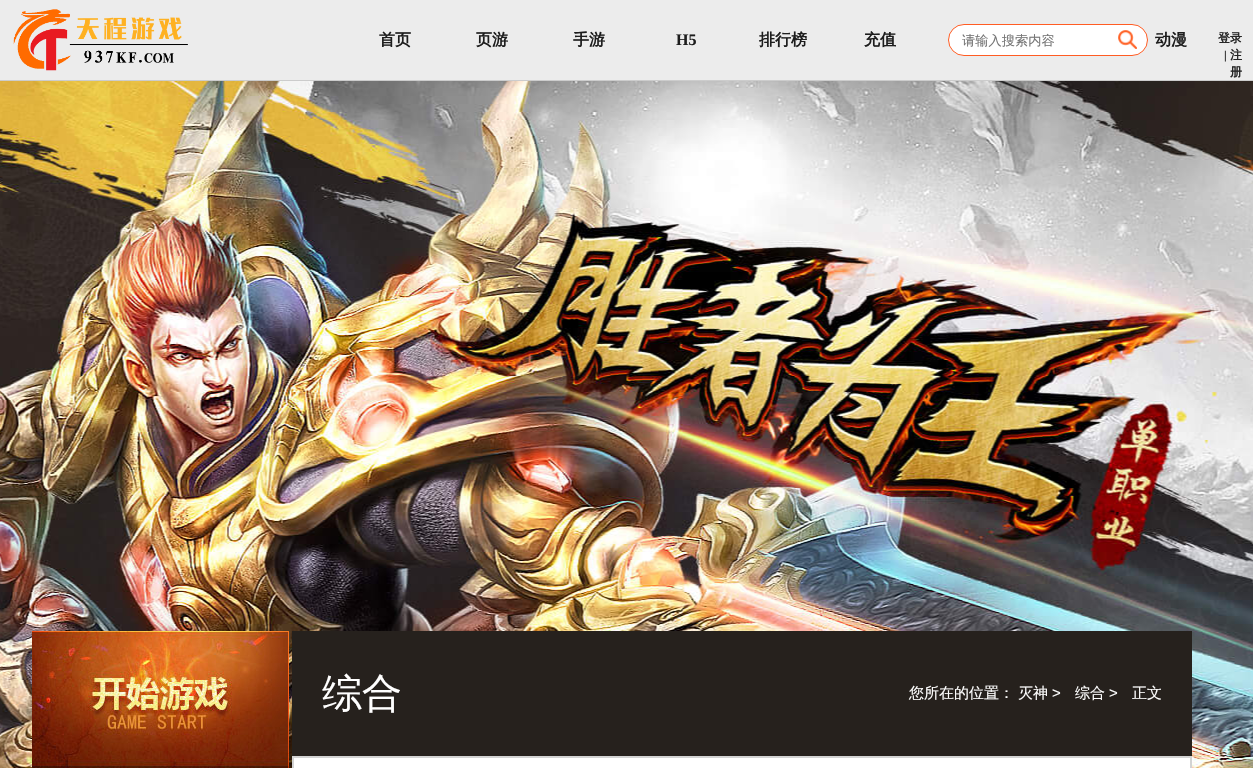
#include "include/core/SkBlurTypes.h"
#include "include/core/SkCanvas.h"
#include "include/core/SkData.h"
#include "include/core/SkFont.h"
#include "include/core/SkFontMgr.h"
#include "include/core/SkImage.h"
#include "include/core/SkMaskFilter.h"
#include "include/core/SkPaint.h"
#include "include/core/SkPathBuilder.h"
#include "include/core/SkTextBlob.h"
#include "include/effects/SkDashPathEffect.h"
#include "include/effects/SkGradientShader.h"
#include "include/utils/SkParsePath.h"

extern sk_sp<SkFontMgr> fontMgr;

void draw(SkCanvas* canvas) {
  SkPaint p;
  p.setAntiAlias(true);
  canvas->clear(SK_ColorWHITE);
  canvas->drawImageRect(SkImages::DeferredFromEncodedData(SkData::MakeFromFileName("images/1.png")), SkRect::MakeLTRB(0, 81, 1253, 768), SkSamplingOptions());
  p.setColor(SkColorSetRGB(236, 236, 236));
  canvas->drawRect(SkRect::MakeLTRB(0, 0, 1253, 80), p);
  p.setColor(SkColorSetRGB(204, 204, 204));
  canvas->drawRect(SkRect::MakeLTRB(0, 80, 1253, 81), p);
  canvas->drawImageRect(SkImages::DeferredFromEncodedData(SkData::MakeFromFileName("images/2.png")), SkRect::MakeLTRB(13, 9, 188, 71), SkSamplingOptions());
  p.setColor(SK_ColorWHITE);
  canvas->drawRoundRect(SkRect::MakeLTRB(948.5f, 24.5f, 1147.5f, 55.5f), 15.5f, 15.5f, p);
  p.setStyle(SkPaint::kStroke_Style);
  p.setStrokeWidth(1);
  p.setColor(SkColorSetRGB(255, 92, 35));
  canvas->drawRoundRect(SkRect::MakeLTRB(948.5f, 24.5f, 1147.5f, 55.5f), 15.5f, 15.5f, p);
  canvas->drawImageRect(SkImages::DeferredFromEncodedData(SkData::MakeFromFileName("images/3.png")), SkRect::MakeLTRB(1118, 30, 1137, 49), SkSamplingOptions());
  canvas->drawImageRect(SkImages::DeferredFromEncodedData(SkData::MakeFromFileName("images/4.png")), SkRect::MakeLTRB(32, 631, 289, 768), SkSamplingOptions());
  p.setStyle(SkPaint::kFill_Style);
  p.setColor(SkColorSetRGB(38, 33, 29));
  canvas->drawRect(SkRect::MakeLTRB(292, 631, 1192, 756), p);
  p.setColor(SK_ColorWHITE);
  canvas->drawRect(SkRect::MakeLTRB(293, 757, 1191, 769), p);
  p.setStyle(SkPaint::kStroke_Style);
  p.setStrokeWidth(2);
  p.setColor(SkColorSetRGB(211, 211, 211));
  canvas->drawRect(SkRect::MakeLTRB(293, 757, 1191, 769), p);
  SkFont font1(fontMgr->matchFamilyStyle("WenQuanYi Zen Hei", SkFontStyle::Bold()), 16);
  font1.setSubpixel(true);
  p.setStyle(SkPaint::kFill_Style);
  p.setColor(SkColorSetRGB(29, 29, 29));
  canvas->drawString("首页", 379, 45, font1, p);
  canvas->drawString("页游", 476, 45, font1, p);
  canvas->drawString("手游", 573, 45, font1, p);
  SkFont font2(fontMgr->matchFamilyStyle("Liberation Serif", SkFontStyle::Bold()), 16);
  font2.setSubpixel(true);
  canvas->drawString("H5", 676, 45, font2, p);
  canvas->drawString("排行榜", 759, 45, font1, p);
  canvas->drawString("充值", 864, 45, font1, p);
  canvas->drawString("动漫", 1155, 45, font1, p);
  SkFont font3(fontMgr->matchFamilyStyle("WenQuanYi Zen Hei", SkFontStyle(500, SkFontStyle::kNormal_Width, SkFontStyle::kUpright_Slant)), 13.25f);
  font3.setSubpixel(true);
  p.setColor(SkColorSetRGB(117, 117, 117));
  canvas->drawString("请输入搜索内容", 962, 45, font3, p);
  SkFont font4(fontMgr->matchFamilyStyle("WenQuanYi Zen Hei", SkFontStyle::Bold()), 12);
  font4.setSubpixel(true);
  p.setColor(SkColorSetRGB(37, 37, 37));
  canvas->drawString("登录", 1218, 42, font4, p);
  SkFont font5(fontMgr->matchFamilyStyle("Liberation Serif", SkFontStyle::Bold()), 12);
  font5.setSubpixel(true);
  p.setColor(SkColorSetRGB(29, 29, 29));
  canvas->drawString("|", 1224, 59, font5, p);
  p.setColor(SkColorSetRGB(37, 37, 37));
  canvas->drawString("注", 1230, 59, font4, p);
  canvas->drawString("册", 1230, 76, font4, p);
  SkFont font6(fontMgr->matchFamilyStyle("WenQuanYi Zen Hei", SkFontStyle(500, SkFontStyle::kNormal_Width, SkFontStyle::kUpright_Slant)), 40);
  font6.setSubpixel(true);
  p.setColor(SK_ColorWHITE);
  canvas->drawString("综合", 322, 707, font6, p);
  SkFont font7(fontMgr->matchFamilyStyle("WenQuanYi Zen Hei", SkFontStyle(500, SkFontStyle::kNormal_Width, SkFontStyle::kUpright_Slant)), 15);
  font7.setSubpixel(true);
  canvas->drawString("您所在的位置：", 909, 698, font7, p);
  canvas->drawString("灭神", 1018, 698, font7, p);
  SkFont font8(fontMgr->matchFamilyStyle("Liberation Sans", SkFontStyle::Normal()), 15);
  font8.setSubpixel(true);
  canvas->drawString(">", 1052, 698, font8, p);
  canvas->drawString("综合", 1075, 698, font7, p);
  canvas->drawString(">", 1109, 698, font8, p);
  canvas->drawString("正文", 1132, 698, font7, p);
}
